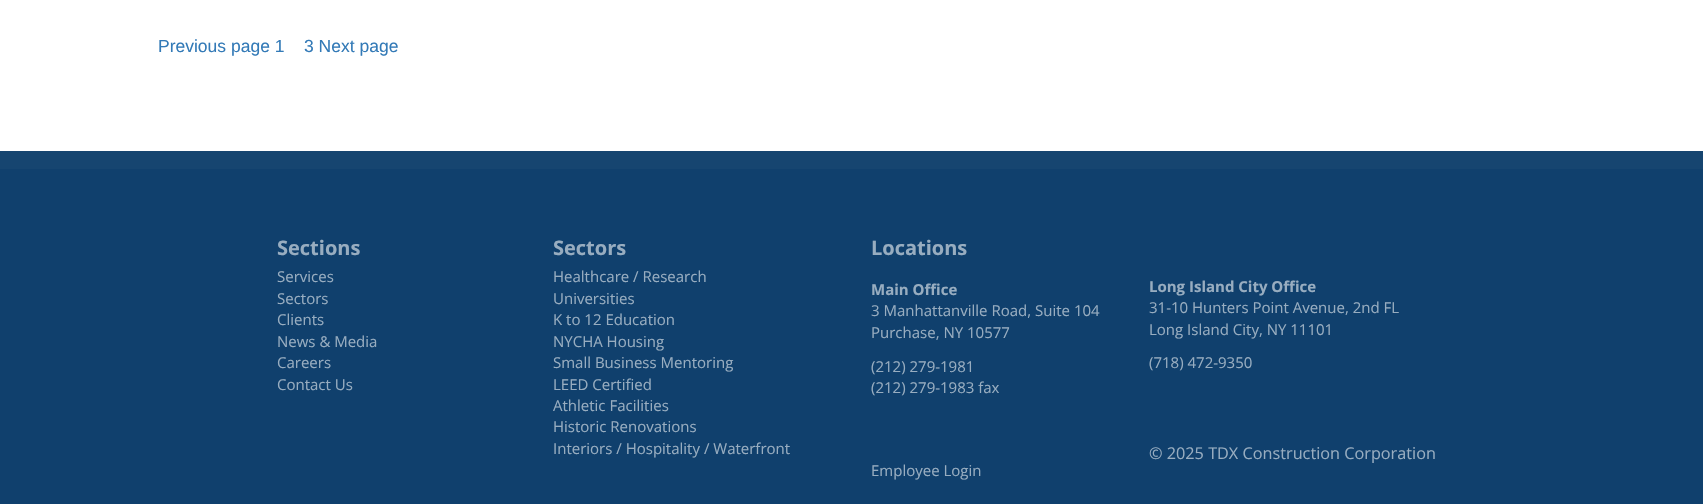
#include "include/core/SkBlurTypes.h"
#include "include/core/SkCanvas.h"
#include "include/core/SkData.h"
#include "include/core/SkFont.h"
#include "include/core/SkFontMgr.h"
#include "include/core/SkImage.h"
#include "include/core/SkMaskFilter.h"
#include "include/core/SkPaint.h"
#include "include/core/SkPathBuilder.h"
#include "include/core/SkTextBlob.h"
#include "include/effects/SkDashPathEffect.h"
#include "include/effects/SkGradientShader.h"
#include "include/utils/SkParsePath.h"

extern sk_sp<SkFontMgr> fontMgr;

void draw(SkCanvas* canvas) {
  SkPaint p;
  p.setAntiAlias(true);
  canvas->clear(SkColorSetRGB(16, 64, 109));
  p.setColor(SK_ColorWHITE);
  canvas->drawRect(SkRect::MakeLTRB(0, 0, 1703, 151), p);
  p.setColor(SkColorSetRGB(22, 69, 112));
  canvas->drawRect(SkRect::MakeLTRB(0, 151, 1703, 169), p);
  SkFont font1(fontMgr->matchFamilyStyle("Liberation Sans", SkFontStyle::Normal()), 17.5f);
  font1.setSubpixel(true);
  p.setColor(SkColorSetRGB(51, 122, 183));
  canvas->drawString("Previous page 1", 158, 52, font1, p);
  canvas->drawString("3 Next page", 304, 52, font1, p);
  SkFont font2(fontMgr->matchFamilyStyle("Open Sans", SkFontStyle::Bold()), 20);
  font2.setSubpixel(true);
  p.setColor(SkColorSetRGB(152, 173, 192));
  canvas->drawString("Sections", 277, 255, font2, p);
  SkFont font3(fontMgr->matchFamilyStyle("Open Sans", SkFontStyle::Normal()), 15);
  font3.setSubpixel(true);
  canvas->drawString("Services", 277, 282, font3, p);
  canvas->drawString("Sectors", 277, 304, font3, p);
  canvas->drawString("Clients", 277, 325, font3, p);
  canvas->drawString("News & Media", 277, 347, font3, p);
  canvas->drawString("Careers", 277, 368, font3, p);
  canvas->drawString("Contact Us", 277, 390, font3, p);
  canvas->drawString("Sectors", 553, 255, font2, p);
  canvas->drawString("Healthcare / Research", 553, 282, font3, p);
  canvas->drawString("Universities", 553, 304, font3, p);
  canvas->drawString("K to 12 Education", 553, 325, font3, p);
  canvas->drawString("NYCHA Housing", 553, 347, font3, p);
  canvas->drawString("Small Business Mentoring", 553, 368, font3, p);
  canvas->drawString("LEED Certified", 553, 390, font3, p);
  canvas->drawString("Athletic Facilities", 553, 411, font3, p);
  canvas->drawString("Historic Renovations", 553, 432, font3, p);
  canvas->drawString("Interiors / Hospitality / Waterfront", 553, 454, font3, p);
  canvas->drawString("Locations", 871, 255, font2, p);
  SkFont font4(fontMgr->matchFamilyStyle("Open Sans", SkFontStyle::Bold()), 15);
  font4.setSubpixel(true);
  canvas->drawString("Main Office", 871, 295, font4, p);
  canvas->drawString("3 Manhattanville Road, Suite 104", 871, 316, font3, p);
  canvas->drawString("Purchase, NY 10577", 871, 338, font3, p);
  canvas->drawString("(212) 279-1981", 871, 372, font3, p);
  canvas->drawString("(212) 279-1983 fax", 871, 393, font3, p);
  canvas->drawString("Employee Login", 871, 476, font3, p);
  canvas->drawString("Long Island City Office", 1149, 292, font4, p);
  canvas->drawString("31-10 Hunters Point Avenue, 2nd FL", 1149, 313, font3, p);
  canvas->drawString("Long Island City, NY 11101", 1149, 335, font3, p);
  canvas->drawString("(718) 472-9350", 1149, 368, font3, p);
  SkFont font5(fontMgr->matchFamilyStyle("Open Sans", SkFontStyle::Normal()), 16.25f);
  font5.setSubpixel(true);
  canvas->drawString("© 2025 TDX Construction Corporation", 1149, 459, font5, p);
}
